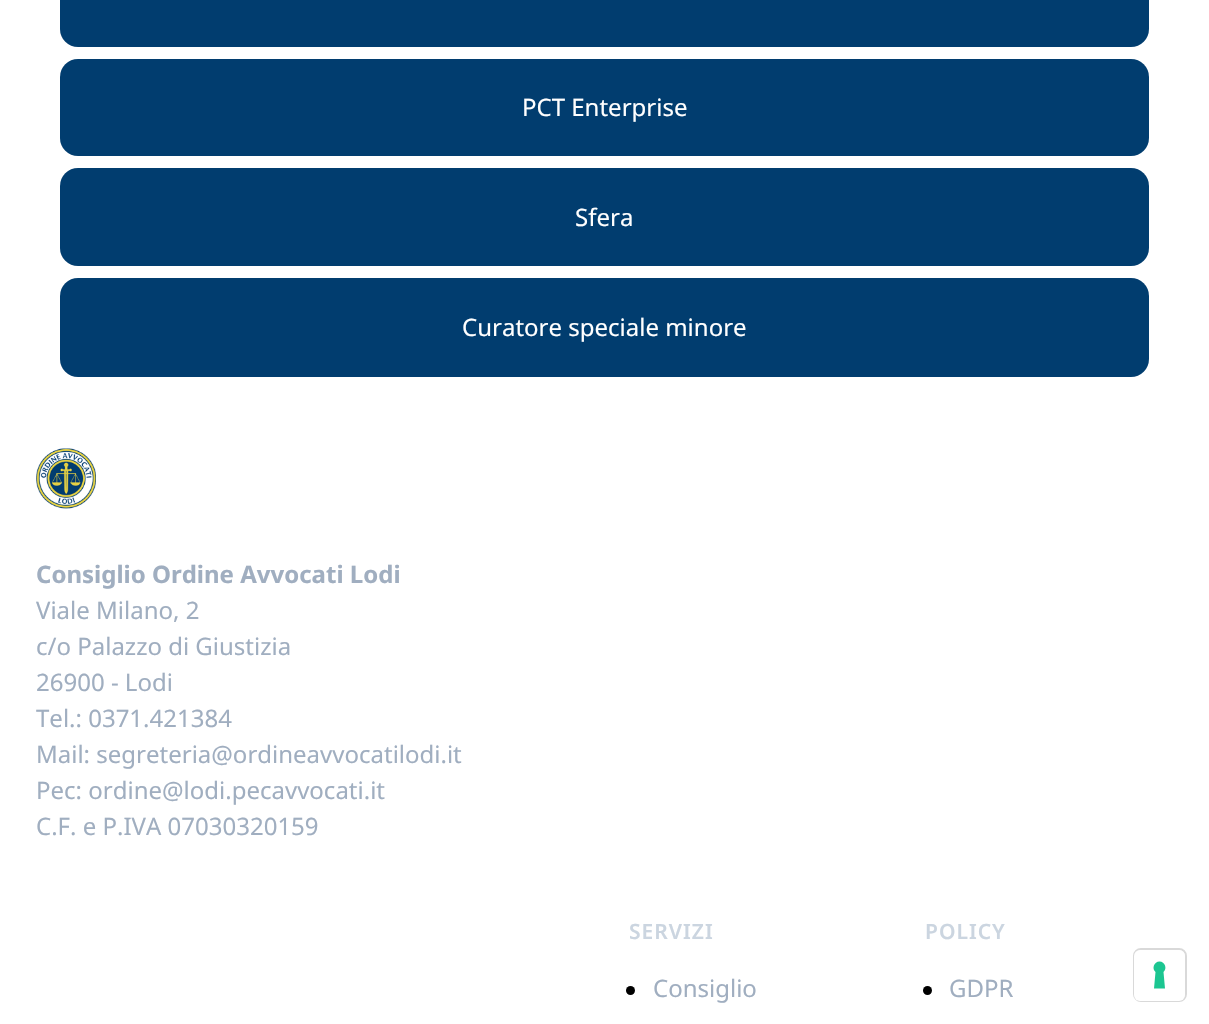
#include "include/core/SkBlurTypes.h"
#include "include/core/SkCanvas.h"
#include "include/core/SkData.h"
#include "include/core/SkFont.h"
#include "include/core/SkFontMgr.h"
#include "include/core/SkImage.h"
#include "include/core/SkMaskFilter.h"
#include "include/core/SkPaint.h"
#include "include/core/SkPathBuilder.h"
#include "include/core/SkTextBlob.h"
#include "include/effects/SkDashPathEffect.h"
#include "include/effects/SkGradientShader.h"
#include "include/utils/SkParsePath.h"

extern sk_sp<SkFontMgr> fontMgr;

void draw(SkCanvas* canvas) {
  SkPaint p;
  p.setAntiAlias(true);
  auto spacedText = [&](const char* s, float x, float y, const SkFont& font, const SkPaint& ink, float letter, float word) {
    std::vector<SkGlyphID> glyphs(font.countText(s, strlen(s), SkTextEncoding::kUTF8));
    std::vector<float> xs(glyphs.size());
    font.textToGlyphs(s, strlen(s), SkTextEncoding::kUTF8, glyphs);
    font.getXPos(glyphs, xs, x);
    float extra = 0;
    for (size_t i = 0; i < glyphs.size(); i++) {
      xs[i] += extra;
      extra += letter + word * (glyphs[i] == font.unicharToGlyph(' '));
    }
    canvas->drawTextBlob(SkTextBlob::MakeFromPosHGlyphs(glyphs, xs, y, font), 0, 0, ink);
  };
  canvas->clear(SK_ColorWHITE);
  p.setColor(SkColorSetRGB(1, 61, 111));
  canvas->drawRoundRect(SkRect::MakeLTRB(60, -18, 1149, 47), 18, 18, p);
  canvas->drawRoundRect(SkRect::MakeLTRB(60, 59, 1149, 156), 18, 18, p);
  canvas->drawRoundRect(SkRect::MakeLTRB(60, 168, 1149, 266), 18, 18, p);
  canvas->drawRoundRect(SkRect::MakeLTRB(60, 278, 1149, 377), 18, 18, p);
  canvas->drawImageRect(SkImages::DeferredFromEncodedData(SkData::MakeFromFileName("images/1.png")), SkRect::MakeLTRB(36, 448, 96, 509), SkSamplingOptions());
  p.setColor(SK_ColorBLACK);
  canvas->drawCircle(630.5f, 990.5f, 4.5f, p);
  canvas->drawCircle(927.5f, 990.5f, 4.5f, p);
  p.setStyle(SkPaint::kStroke_Style);
  p.setStrokeWidth(2);
  p.setColor(SkColorSetRGB(217, 217, 217));
  canvas->drawRoundRect(SkRect::MakeLTRB(1134, 949, 1186, 1001), 7, 7, p);
  p.setStyle(SkPaint::kFill_Style);
  p.setColor(SK_ColorWHITE);
  canvas->drawRoundRect(SkRect::MakeLTRB(1134, 950, 1185, 1001), 6, 6, p);
  p.setColor(SkColorSetRGB(28, 198, 145));
  canvas->drawPath(SkPathBuilder(SkPathFillType::kEvenOdd).moveTo(1159.5f, 961.5f).cubicTo(1165, 961.5f, 1167.5f, 968.5f, 1163.5f, 972).lineTo(1165, 988.5f).lineTo(1154, 988.5f).lineTo(1155.5f, 972).cubicTo(1151.5f, 968.5f, 1154, 961.5f, 1159.5f, 961.5f).close().detach(), p);
  SkFont font1(fontMgr->matchFamilyStyle("Noto Sans", SkFontStyle::Normal()), 24);
  font1.setSubpixel(true);
  p.setColor(SK_ColorWHITE);
  canvas->drawString("PCT Enterprise", 522, 116, font1, p);
  canvas->drawString("Sfera", 575, 226, font1, p);
  canvas->drawString("Curatore speciale minore", 462, 336, font1, p);
  SkFont font2(fontMgr->matchFamilyStyle("Noto Sans", SkFontStyle::Bold()), 24);
  font2.setSubpixel(true);
  p.setColor(SkColorSetRGB(160, 174, 192));
  canvas->drawString("Consiglio Ordine Avvocati Lodi", 36, 583, font2, p);
  canvas->drawString("Viale Milano, 2", 36, 619, font1, p);
  canvas->drawString("c/o Palazzo di Giustizia", 36, 655, font1, p);
  canvas->drawString("26900 - Lodi", 36, 691, font1, p);
  canvas->drawString("Tel.: 0371.421384", 36, 727, font1, p);
  canvas->drawString("Mail: segreteria@ordineavvocatilodi.it", 36, 763, font1, p);
  canvas->drawString("Pec: ordine@lodi.pecavvocati.it", 36, 799, font1, p);
  canvas->drawString("C.F. e P.IVA 07030320159", 36, 835, font1, p);
  SkFont font3(fontMgr->matchFamilyStyle("Noto Sans", SkFontStyle(600, SkFontStyle::kNormal_Width, SkFontStyle::kUpright_Slant)), 21);
  font3.setSubpixel(true);
  p.setColor(SkColorSetRGB(203, 213, 224));
  spacedText("SERVIZI", 629, 939, font3, p, 1, 0);
  p.setColor(SkColorSetRGB(160, 174, 192));
  canvas->drawString("Consiglio", 653, 997, font1, p);
  p.setColor(SkColorSetRGB(203, 213, 224));
  spacedText("POLICY", 925, 939, font3, p, 1, 0);
  p.setColor(SkColorSetRGB(160, 174, 192));
  canvas->drawString("GDPR", 949, 997, font1, p);
}
